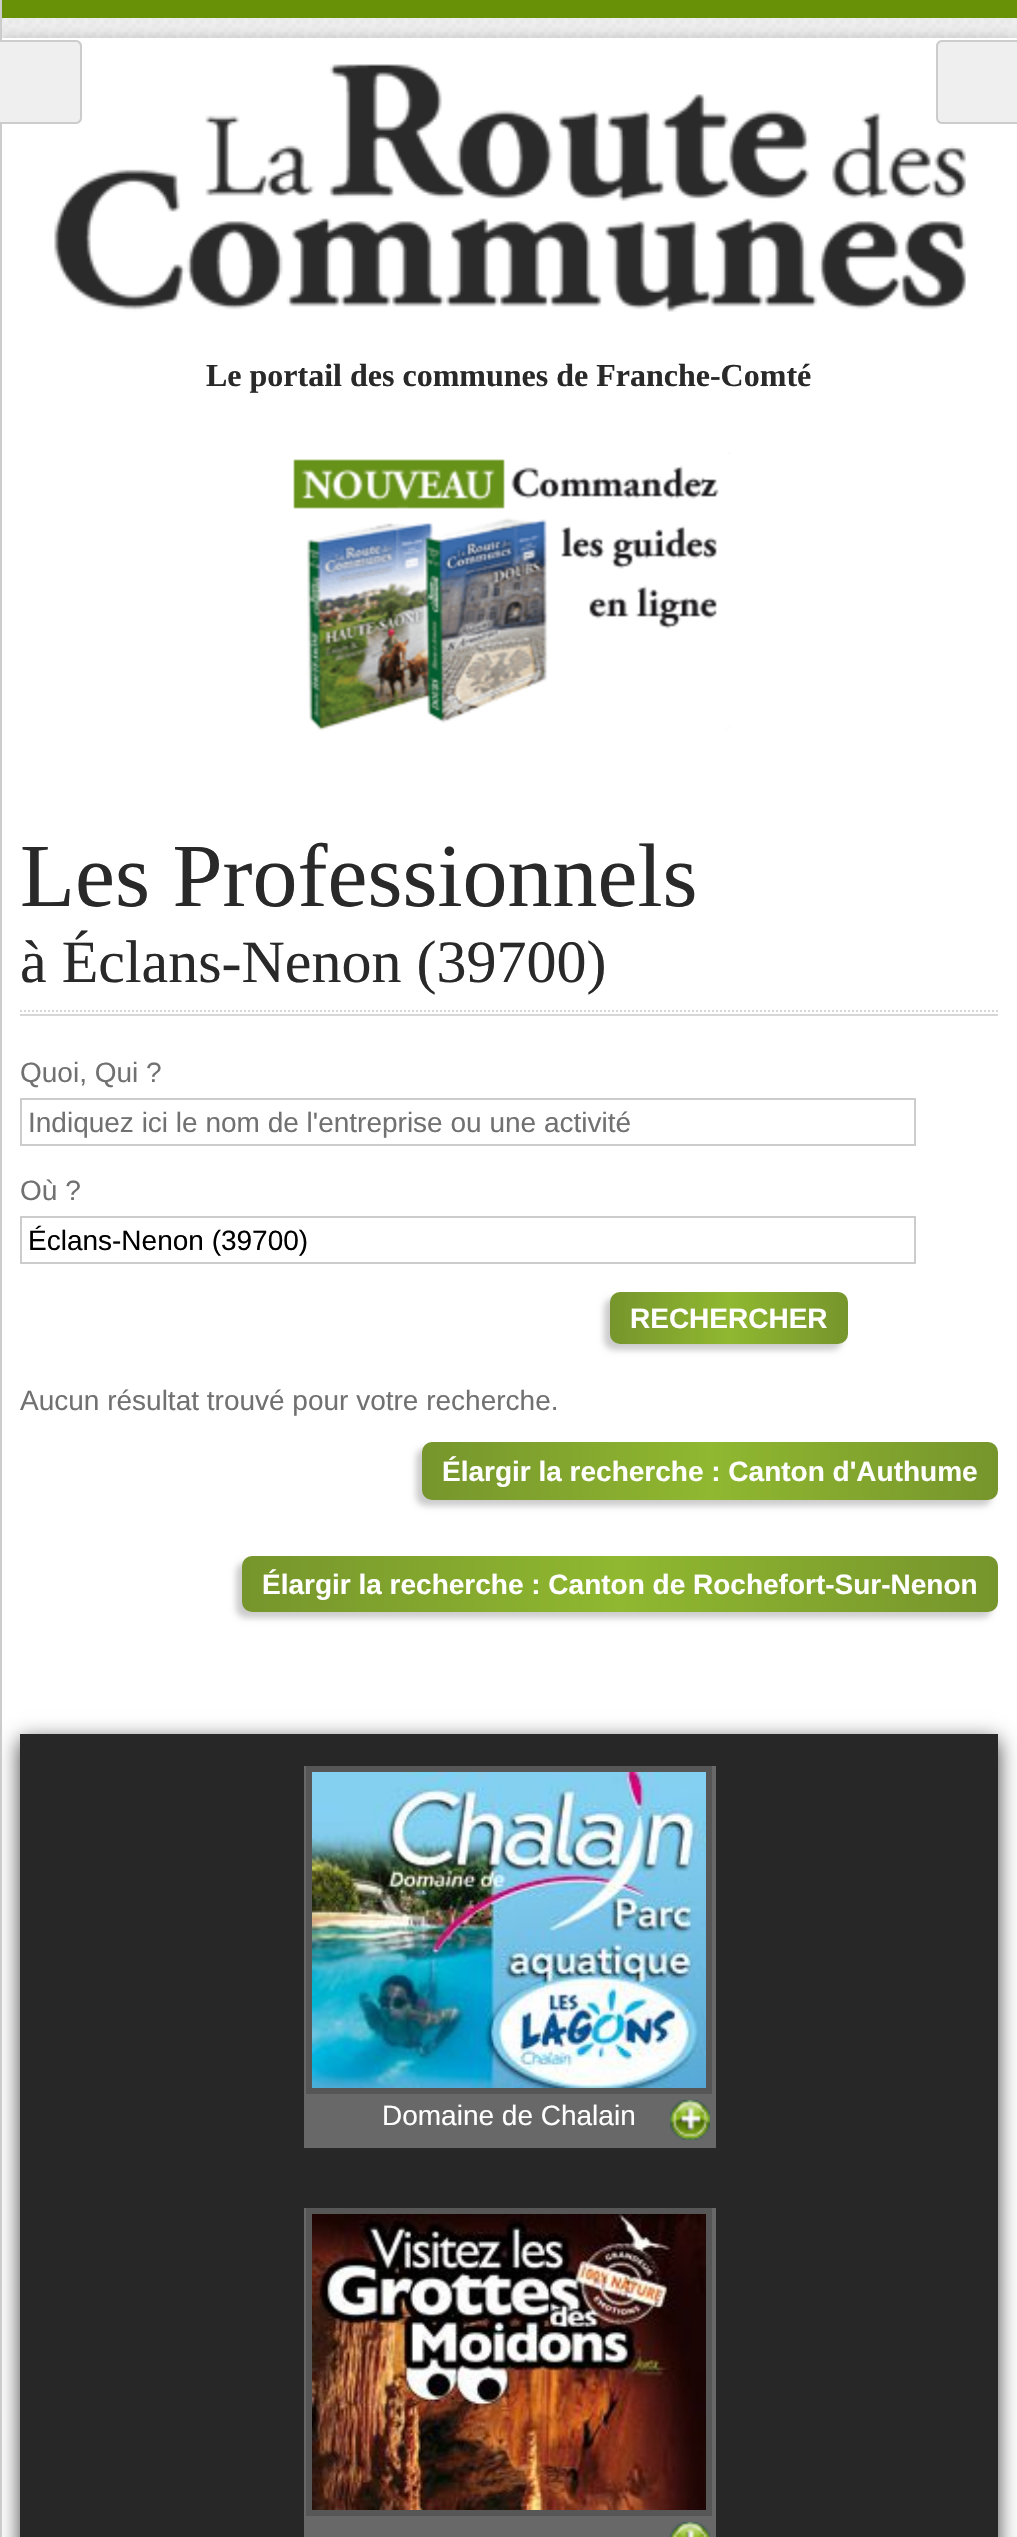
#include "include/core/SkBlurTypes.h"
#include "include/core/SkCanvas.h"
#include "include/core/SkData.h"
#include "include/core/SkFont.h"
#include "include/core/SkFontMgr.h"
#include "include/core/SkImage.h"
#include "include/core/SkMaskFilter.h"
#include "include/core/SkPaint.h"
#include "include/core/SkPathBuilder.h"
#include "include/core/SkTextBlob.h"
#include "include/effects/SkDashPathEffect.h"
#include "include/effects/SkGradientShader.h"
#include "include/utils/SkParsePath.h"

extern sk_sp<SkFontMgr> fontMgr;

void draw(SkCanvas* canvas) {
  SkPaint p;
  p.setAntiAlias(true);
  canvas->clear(SK_ColorWHITE);
  canvas->drawImageRect(SkImages::DeferredFromEncodedData(SkData::MakeFromFileName("images/1.png")), SkRect::MakeLTRB(2, 18, 1017, 38), SkSamplingOptions());
  p.setColor(SkColorSetRGB(104, 145, 8));
  canvas->drawRect(SkRect::MakeLTRB(2, 0, 1017, 18), p);
  p.setColor(SkColorSetARGB(153, 0, 0, 0));
  p.setMaskFilter(SkMaskFilter::MakeBlur(kNormal_SkBlurStyle, 10));
  canvas->drawRect(SkRect::MakeLTRB(0, 48, 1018, 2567), p);
  p.setMaskFilter(nullptr);
  p.setColor(SK_ColorWHITE);
  canvas->drawRect(SkRect::MakeLTRB(2, 38, 1017, 2537), p);
  p.setColor(SkColorSetARGB(191, 0, 0, 0));
  p.setMaskFilter(SkMaskFilter::MakeBlur(kNormal_SkBlurStyle, 10));
  canvas->drawRect(SkRect::MakeLTRB(20, 1740, 998, 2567), p);
  p.setMaskFilter(nullptr);
  p.setColor(SkColorSetRGB(204, 204, 204));
  canvas->drawRect(SkRect::MakeLTRB(0, 0, 2, 2537), p);
  canvas->drawImageRect(SkImages::DeferredFromEncodedData(SkData::MakeFromFileName("images/2.png")), SkRect::MakeLTRB(54, 64, 966, 312), SkSamplingOptions());
  p.setColor(SkColorSetRGB(239, 239, 239));
  canvas->drawPath(SkPathBuilder().moveTo(0, 40).lineTo(76, 40).cubicTo(79.5f, 40, 82, 42.5f, 82, 46).lineTo(82, 118).cubicTo(82, 121.5f, 79.5f, 124, 76, 124).lineTo(0, 124).close().detach(), p);
  p.setColor(SkColorSetRGB(204, 204, 204));
  canvas->drawPath(SkPathBuilder(SkPathFillType::kEvenOdd).moveTo(0, 40).lineTo(76, 40).cubicTo(79, 40, 82, 43, 82, 46).lineTo(82, 118).cubicTo(82, 121, 79, 124, 76, 124).lineTo(0, 124).close().moveTo(0, 42).lineTo(76, 42).cubicTo(78, 42, 80, 44, 80, 46).lineTo(80, 118).cubicTo(80, 120, 78, 122, 76, 122).lineTo(0, 122).close().detach(), p);
  p.setColor(SkColorSetRGB(239, 239, 239));
  canvas->drawPath(SkPathBuilder().moveTo(942, 40).lineTo(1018, 40).lineTo(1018, 124).lineTo(942, 124).cubicTo(938.5f, 124, 936, 121.5f, 936, 118).lineTo(936, 46).cubicTo(936, 42.5f, 938.5f, 40, 942, 40).close().detach(), p);
  p.setColor(SkColorSetRGB(204, 204, 204));
  canvas->drawPath(SkPathBuilder(SkPathFillType::kEvenOdd).moveTo(942, 40).lineTo(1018, 40).lineTo(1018, 124).lineTo(942, 124).cubicTo(939, 124, 936, 121, 936, 118).lineTo(936, 46).cubicTo(936, 43, 939, 40, 942, 40).close().moveTo(942, 42).lineTo(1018, 42).lineTo(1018, 122).lineTo(942, 122).cubicTo(940, 122, 938, 120, 938, 118).lineTo(938, 46).cubicTo(938, 44, 940, 42, 942, 42).close().detach(), p);
  canvas->drawImageRect(SkImages::DeferredFromEncodedData(SkData::MakeFromFileName("images/3.png")), SkRect::MakeLTRB(293, 452, 730, 731), SkSamplingOptions());
  p.setStyle(SkPaint::kStroke_Style);
  p.setStrokeWidth(2);
  p.setColor(SkColorSetRGB(215, 215, 215));
  p.setPathEffect(SkDashPathEffect::Make({{2, 2}}, 0));
  canvas->drawPath(SkPathBuilder().moveTo(20, 1011).lineTo(998, 1011).detach(), p);
  p.setPathEffect(nullptr);
  p.setStyle(SkPaint::kFill_Style);
  canvas->drawRect(SkRect::MakeLTRB(20, 1014, 998, 1016), p);
  p.setStyle(SkPaint::kStroke_Style);
  p.setColor(SkColorSetRGB(204, 204, 204));
  canvas->drawRect(SkRect::MakeLTRB(21, 1099, 915, 1145), p);
  canvas->drawRect(SkRect::MakeLTRB(21, 1217, 915, 1263), p);
  p.setStyle(SkPaint::kFill_Style);
  p.setColor(SkColorSetARGB(51, 0, 0, 0));
  p.setMaskFilter(SkMaskFilter::MakeBlur(kNormal_SkBlurStyle, 3));
  canvas->drawRoundRect(SkRect::MakeLTRB(604, 1298, 842, 1350), 10, 10, p);
  p.setMaskFilter(nullptr);
  {
    const SkColor colors[] = {SkColorSetRGB(118, 149, 44), SkColorSetRGB(144, 184, 48), SkColorSetRGB(118, 149, 44)};
    const float stops[] = {0, 0.5f, 1};
    const SkPoint ends[] = {{610, 1318}, {848, 1318}};
    p.setShader(SkGradientShader::MakeLinear(ends, colors, stops, 3, SkTileMode::kClamp));
    p.setAlpha(255);
  }
  canvas->drawRoundRect(SkRect::MakeLTRB(610, 1292, 848, 1344), 10, 10, p);
  p.setShader(nullptr);
  p.setColor(SkColorSetARGB(51, 0, 0, 0));
  p.setMaskFilter(SkMaskFilter::MakeBlur(kNormal_SkBlurStyle, 3));
  canvas->drawRoundRect(SkRect::MakeLTRB(416, 1448, 992, 1506), 10, 10, p);
  p.setMaskFilter(nullptr);
  {
    const SkColor colors[] = {SkColorSetRGB(118, 149, 44), SkColorSetRGB(144, 184, 48), SkColorSetRGB(118, 149, 44)};
    const float stops[] = {0, 0.5f, 1};
    const SkPoint ends[] = {{422, 1471}, {998, 1471}};
    p.setShader(SkGradientShader::MakeLinear(ends, colors, stops, 3, SkTileMode::kClamp));
    p.setAlpha(255);
  }
  canvas->drawRoundRect(SkRect::MakeLTRB(422, 1442, 998, 1500), 10, 10, p);
  p.setShader(nullptr);
  p.setColor(SkColorSetARGB(51, 0, 0, 0));
  p.setMaskFilter(SkMaskFilter::MakeBlur(kNormal_SkBlurStyle, 3));
  canvas->drawRoundRect(SkRect::MakeLTRB(236, 1562, 992, 1618), 10, 10, p);
  p.setMaskFilter(nullptr);
  {
    const SkColor colors[] = {SkColorSetRGB(118, 149, 44), SkColorSetRGB(144, 184, 48), SkColorSetRGB(118, 149, 44)};
    const float stops[] = {0, 0.5f, 1};
    const SkPoint ends[] = {{242, 1584}, {998, 1584}};
    p.setShader(SkGradientShader::MakeLinear(ends, colors, stops, 3, SkTileMode::kClamp));
    p.setAlpha(255);
  }
  canvas->drawRoundRect(SkRect::MakeLTRB(242, 1556, 998, 1612), 10, 10, p);
  p.setShader(nullptr);
  p.setColor(SkColorSetRGB(39, 39, 39));
  canvas->drawRect(SkRect::MakeLTRB(20, 1734, 998, 2537), p);
  p.setColor(SkColorSetRGB(104, 104, 104));
  canvas->drawRect(SkRect::MakeLTRB(304, 1766, 716, 2148), p);
  p.setStyle(SkPaint::kStroke_Style);
  p.setStrokeWidth(6);
  p.setColor(SkColorSetRGB(86, 86, 86));
  canvas->drawRect(SkRect::MakeLTRB(309, 1769, 709, 2091), p);
  canvas->drawImageRect(SkImages::DeferredFromEncodedData(SkData::MakeFromFileName("images/4.png")), SkRect::MakeLTRB(312, 1772, 706, 2088), SkSamplingOptions());
  canvas->drawImageRect(SkImages::DeferredFromEncodedData(SkData::MakeFromFileName("images/5.png")), SkRect::MakeLTRB(670, 2100, 710, 2140), SkSamplingOptions());
  p.setStyle(SkPaint::kFill_Style);
  p.setColor(SkColorSetRGB(104, 104, 104));
  canvas->drawRect(SkRect::MakeLTRB(304, 2208, 716, 2537), p);
  p.setStyle(SkPaint::kStroke_Style);
  p.setColor(SkColorSetRGB(86, 86, 86));
  canvas->drawRect(SkRect::MakeLTRB(309, 2211, 709, 2513), p);
  canvas->drawImageRect(SkImages::DeferredFromEncodedData(SkData::MakeFromFileName("images/6.png")), SkRect::MakeLTRB(312, 2214, 706, 2510), SkSamplingOptions());
  canvas->drawImageRect(SkImages::DeferredFromEncodedData(SkData::MakeFromFileName("images/7.png")), SkRect::MakeLTRB(670, 2522, 710, 2537), SkSamplingOptions());
  SkFont font1(fontMgr->matchFamilyStyle("Liberation Serif", SkFontStyle::Bold()), 32);
  font1.setSubpixel(true);
  p.setStyle(SkPaint::kFill_Style);
  p.setColor(SkColorSetRGB(41, 41, 41));
  canvas->drawString("Le portail des communes de Franche-Comté", 206, 386, font1, p);
  SkFont font2(fontMgr->matchFamilyStyle("Liberation Serif", SkFontStyle::Normal()), 90);
  font2.setSubpixel(true);
  canvas->drawString("Les Professionnels", 20, 906, font2, p);
  SkFont font3(fontMgr->matchFamilyStyle("Liberation Serif", SkFontStyle::Normal()), 60);
  font3.setSubpixel(true);
  canvas->drawString("à Éclans-Nenon (39700)", 20, 982, font3, p);
  SkFont font4(fontMgr->matchFamilyStyle("Liberation Sans", SkFontStyle::Normal()), 28);
  font4.setSubpixel(true);
  p.setColor(SkColorSetRGB(113, 113, 113));
  canvas->drawString("Quoi, Qui ?", 20, 1082, font4, p);
  canvas->drawString("Indiquez ici le nom de l'entreprise ou une activité", 28, 1132, font4, p);
  canvas->drawString("Où ?", 20, 1200, font4, p);
  p.setColor(SK_ColorBLACK);
  canvas->drawString("Éclans-Nenon (39700)", 28, 1250, font4, p);
  SkFont font5(fontMgr->matchFamilyStyle("Liberation Sans", SkFontStyle::Bold()), 28);
  font5.setSubpixel(true);
  p.setColor(SK_ColorWHITE);
  canvas->drawString("RECHERCHER", 630, 1328, font5, p);
  p.setColor(SkColorSetRGB(113, 113, 113));
  canvas->drawString("Aucun résultat trouvé pour votre recherche.", 20, 1410, font4, p);
  p.setColor(SK_ColorWHITE);
  canvas->drawString("Élargir la recherche : Canton d'Authume", 442, 1481, font5, p);
  canvas->drawString("Élargir la recherche : Canton de Rochefort-Sur-Nenon", 262, 1594, font5, p);
  canvas->drawString("Domaine de Chalain", 382, 2125, font4, p);
}
